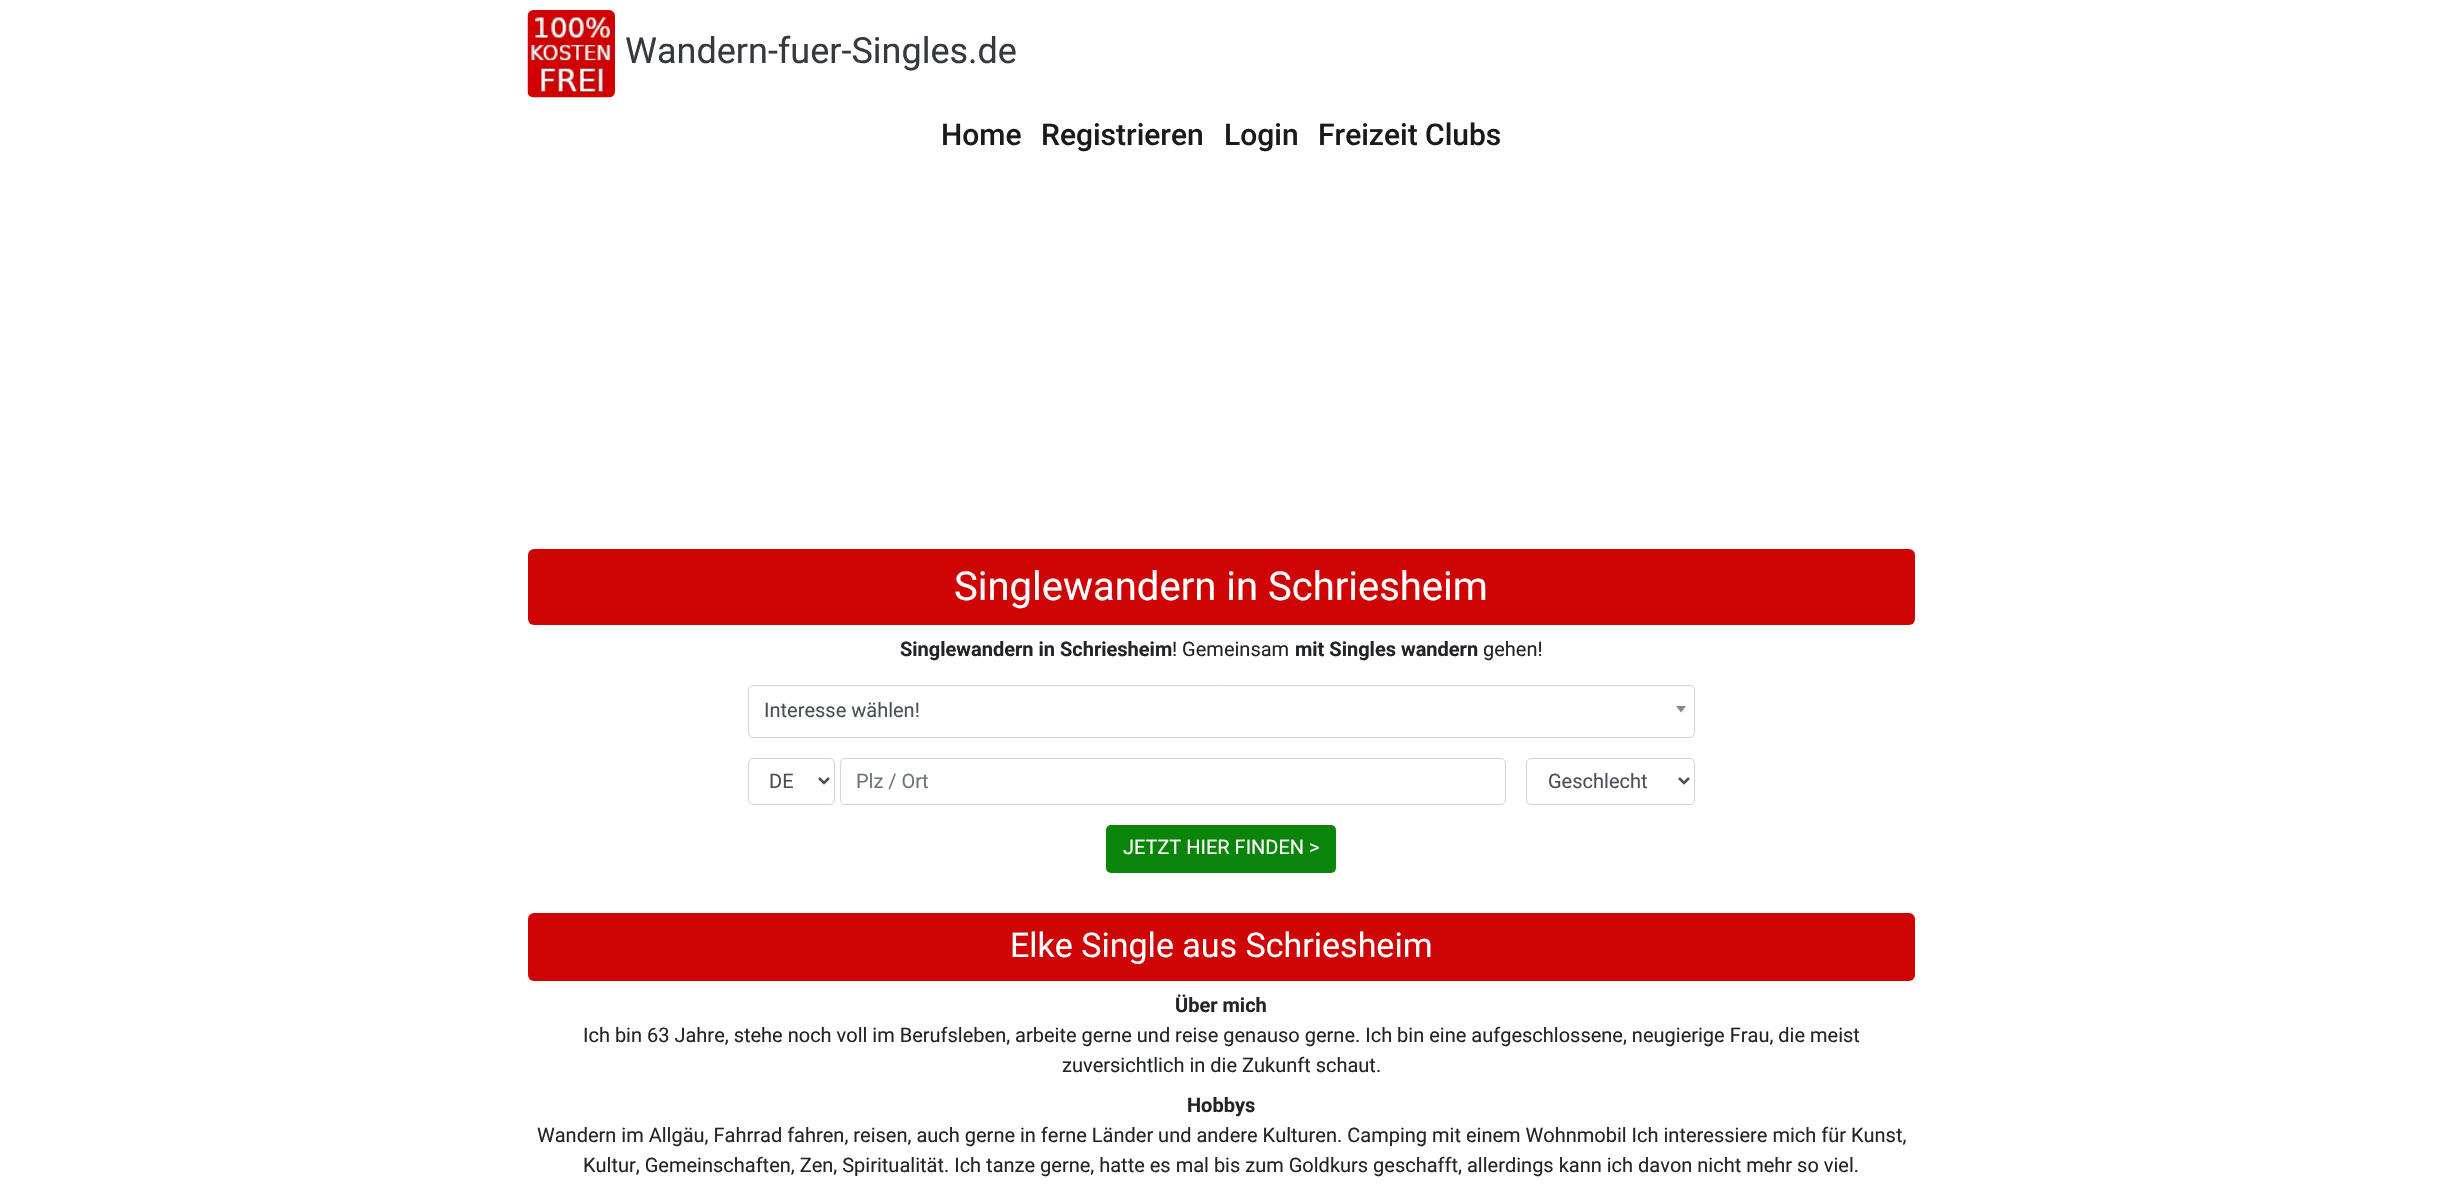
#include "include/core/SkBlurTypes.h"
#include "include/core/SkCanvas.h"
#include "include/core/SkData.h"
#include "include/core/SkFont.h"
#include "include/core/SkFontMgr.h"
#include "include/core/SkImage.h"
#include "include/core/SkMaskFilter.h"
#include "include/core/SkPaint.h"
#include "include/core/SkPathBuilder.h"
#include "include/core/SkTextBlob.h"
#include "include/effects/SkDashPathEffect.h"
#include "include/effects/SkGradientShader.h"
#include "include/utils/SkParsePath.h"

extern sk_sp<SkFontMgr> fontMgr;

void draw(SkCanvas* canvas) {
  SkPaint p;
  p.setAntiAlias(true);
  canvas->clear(SK_ColorWHITE);
  canvas->drawImageRect(SkImages::DeferredFromEncodedData(SkData::MakeFromFileName("images/1.png")), SkRect::MakeLTRB(527, 10, 615, 98), SkSamplingOptions());
  p.setColor(SkColorSetRGB(207, 4, 4));
  canvas->drawRoundRect(SkRect::MakeLTRB(528, 549, 1915, 625), 6, 6, p);
  p.setStyle(SkPaint::kStroke_Style);
  p.setStrokeWidth(1);
  p.setColor(SkColorSetRGB(206, 212, 218));
  canvas->drawRoundRect(SkRect::MakeLTRB(748.5f, 685.5f, 1694.5f, 737.5f), 4.5f, 4.5f, p);
  p.setStyle(SkPaint::kFill_Style);
  p.setColor(SkColorSetRGB(136, 136, 136));
  canvas->drawPath(SkPathBuilder().moveTo(1676, 706).lineTo(1686, 706).lineTo(1681, 712.5f).close().detach(), p);
  p.setStyle(SkPaint::kStroke_Style);
  p.setColor(SkColorSetRGB(206, 212, 218));
  canvas->drawRoundRect(SkRect::MakeLTRB(748.5f, 758.5f, 834.5f, 804.5f), 4.5f, 4.5f, p);
  p.setStrokeWidth(2.5f);
  p.setColor(SkColorSetRGB(73, 80, 87));
  canvas->drawPath(SkPathBuilder().moveTo(819, 778).lineTo(824, 783).lineTo(829, 778).detach(), p);
  p.setStrokeWidth(1);
  p.setColor(SkColorSetRGB(206, 212, 218));
  canvas->drawRoundRect(SkRect::MakeLTRB(840.5f, 758.5f, 1505.5f, 804.5f), 4.5f, 4.5f, p);
  canvas->drawRoundRect(SkRect::MakeLTRB(1526.5f, 758.5f, 1694.5f, 804.5f), 4.5f, 4.5f, p);
  p.setStrokeWidth(2.5f);
  p.setColor(SkColorSetRGB(73, 80, 87));
  canvas->drawPath(SkPathBuilder().moveTo(1679, 778).lineTo(1684, 783).lineTo(1689, 778).detach(), p);
  p.setStyle(SkPaint::kFill_Style);
  p.setColor(SkColorSetRGB(10, 133, 10));
  canvas->drawRoundRect(SkRect::MakeLTRB(1106, 825, 1336, 873), 5, 5, p);
  p.setColor(SkColorSetRGB(207, 4, 4));
  canvas->drawRoundRect(SkRect::MakeLTRB(528, 913, 1915, 981), 6, 6, p);
  SkFont font1(fontMgr->matchFamilyStyle("Roboto", SkFontStyle::Normal()), 36);
  font1.setSubpixel(true);
  p.setColor(SkColorSetRGB(52, 58, 64));
  canvas->drawString("Wandern-fuer-Singles.de", 625, 63, font1, p);
  SkFont font2(fontMgr->matchFamilyStyle("Roboto", SkFontStyle(500, SkFontStyle::kNormal_Width, SkFontStyle::kUpright_Slant)), 30);
  font2.setSubpixel(true);
  p.setColor(SkColorSetRGB(26, 26, 26));
  canvas->drawString("Home", 941, 145, font2, p);
  canvas->drawString("Registrieren", 1041, 145, font2, p);
  canvas->drawString("Login", 1224, 145, font2, p);
  canvas->drawString("Freizeit Clubs", 1318, 145, font2, p);
  SkFont font3(fontMgr->matchFamilyStyle("Roboto", SkFontStyle::Normal()), 40);
  font3.setSubpixel(true);
  p.setColor(SK_ColorWHITE);
  canvas->drawString("Singlewandern in Schriesheim", 954, 600, font3, p);
  SkFont font4(fontMgr->matchFamilyStyle("Roboto", SkFontStyle::Bold()), 20);
  font4.setSubpixel(true);
  p.setColor(SkColorSetRGB(33, 37, 41));
  canvas->drawString("Singlewandern in Schriesheim", 900, 656, font4, p);
  SkFont font5(fontMgr->matchFamilyStyle("Roboto", SkFontStyle::Normal()), 20);
  font5.setSubpixel(true);
  canvas->drawString("! Gemeinsam", 1172, 656, font5, p);
  canvas->drawString("mit Singles wandern", 1295, 656, font4, p);
  canvas->drawString("gehen!", 1483, 656, font5, p);
  p.setColor(SkColorSetRGB(73, 80, 87));
  canvas->drawString("Interesse wählen!", 764, 717, font5, p);
  canvas->drawString("DE", 769, 788, font5, p);
  p.setColor(SkColorSetRGB(108, 117, 125));
  canvas->drawString("Plz / Ort", 856, 788, font5, p);
  p.setColor(SkColorSetRGB(73, 80, 87));
  canvas->drawString("Geschlecht", 1548, 788, font5, p);
  p.setColor(SK_ColorWHITE);
  canvas->drawString("JETZT HIER FINDEN >", 1123, 854, font5, p);
  SkFont font6(fontMgr->matchFamilyStyle("Roboto", SkFontStyle::Normal()), 34);
  font6.setSubpixel(true);
  canvas->drawString("Elke Single aus Schriesheim", 1010, 957, font6, p);
  p.setColor(SkColorSetRGB(33, 37, 41));
  canvas->drawString("Über mich", 1175, 1012, font4, p);
  canvas->drawString("Ich bin 63 Jahre, stehe noch voll im Berufsleben, arbeite gerne und reise genauso gerne. Ich bin eine aufgeschlossene, neugierige Frau, die meist", 583, 1042, font5, p);
  canvas->drawString("zuversichtlich in die Zukunft schaut.", 1062, 1072, font5, p);
  canvas->drawString("Hobbys", 1187, 1112, font4, p);
  canvas->drawString("Wandern im Allgäu, Fahrrad fahren, reisen, auch gerne in ferne Länder und andere Kulturen. Camping mit einem Wohnmobil Ich interessiere mich für Kunst,", 537, 1142, font5, p);
  canvas->drawString("Kultur, Gemeinschaften, Zen, Spiritualität. Ich tanze gerne, hatte es mal bis zum Goldkurs geschafft, allerdings kann ich davon nicht mehr so viel.", 583, 1172, font5, p);
}
